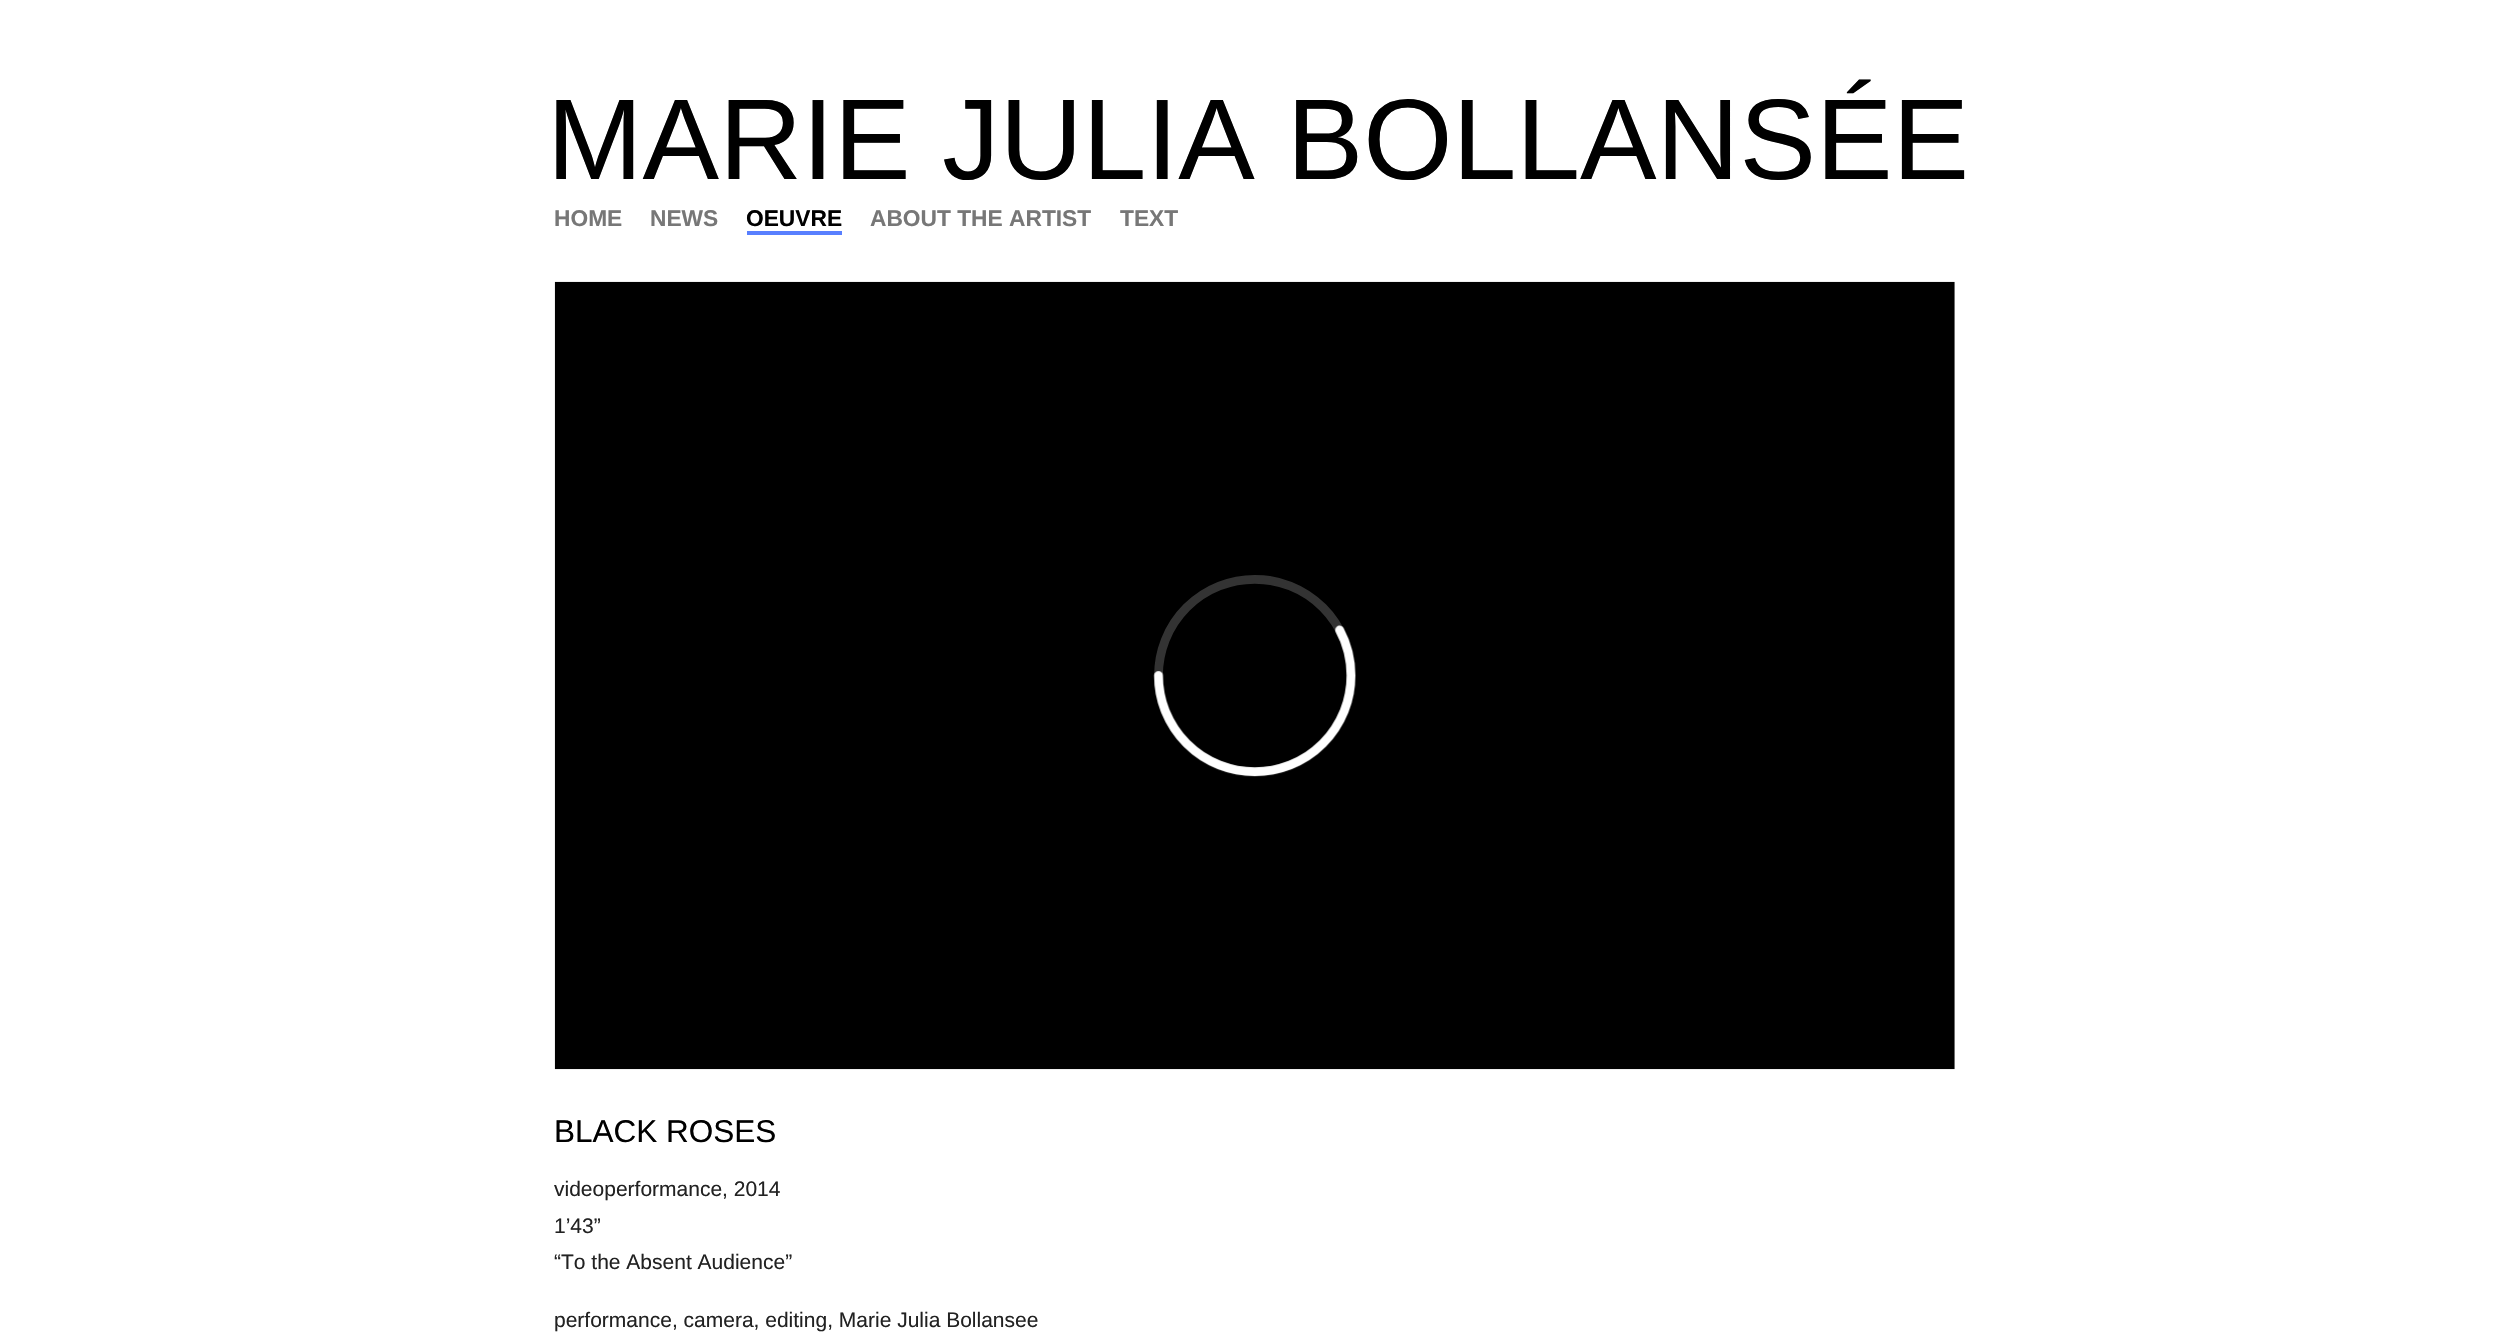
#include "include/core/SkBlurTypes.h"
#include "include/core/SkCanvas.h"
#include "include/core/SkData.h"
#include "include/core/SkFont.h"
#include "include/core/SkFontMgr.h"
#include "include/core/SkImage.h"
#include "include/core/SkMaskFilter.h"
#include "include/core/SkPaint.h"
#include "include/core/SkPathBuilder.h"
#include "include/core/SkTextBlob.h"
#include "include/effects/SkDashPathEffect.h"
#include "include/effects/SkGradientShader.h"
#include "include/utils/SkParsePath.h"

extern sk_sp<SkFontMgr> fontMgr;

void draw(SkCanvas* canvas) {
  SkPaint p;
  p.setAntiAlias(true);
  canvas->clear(SK_ColorWHITE);
  p.setColor(SkColorSetRGB(88, 127, 255));
  canvas->drawRect(SkRect::MakeLTRB(747, 231, 842, 235), p);
  canvas->drawImageRect(SkImages::DeferredFromEncodedData(SkData::MakeFromFileName("images/1.png")), SkRect::MakeLTRB(554, 281, 1955, 1070), SkSamplingOptions());
  SkFont font1(fontMgr->matchFamilyStyle("Liberation Sans", SkFontStyle::Normal()), 114.75f);
  font1.setSubpixel(true);
  p.setColor(SK_ColorBLACK);
  canvas->drawString("MARIE JULIA BOLLANSÉE", 547, 179, font1, p);
  SkFont font2(fontMgr->matchFamilyStyle("Liberation Sans", SkFontStyle::Bold()), 22.75f);
  font2.setSubpixel(true);
  p.setColor(SkColorSetRGB(119, 119, 119));
  canvas->drawString("HOME", 554, 226, font2, p);
  canvas->drawString("NEWS", 650, 226, font2, p);
  p.setColor(SK_ColorBLACK);
  canvas->drawString("OEUVRE", 746, 226, font2, p);
  p.setColor(SkColorSetRGB(119, 119, 119));
  canvas->drawString("ABOUT THE ARTIST", 870, 226, font2, p);
  canvas->drawString("TEXT", 1120, 226, font2, p);
  SkFont font3(fontMgr->matchFamilyStyle("Liberation Sans", SkFontStyle::Normal()), 31.5f);
  font3.setSubpixel(true);
  p.setColor(SK_ColorBLACK);
  canvas->drawString("BLACK ROSES", 554, 1142, font3, p);
  SkFont font4(fontMgr->matchFamilyStyle("Liberation Sans", SkFontStyle::Normal()), 21);
  font4.setSubpixel(true);
  p.setColor(SkColorSetRGB(34, 34, 34));
  canvas->drawString("videoperformance, 2014", 554, 1196, font4, p);
  canvas->drawString("1’43”", 554, 1233, font4, p);
  canvas->drawString("“To the Absent Audience”", 554, 1269, font4, p);
  canvas->drawString("performance, camera, editing, Marie Julia Bollansee", 554, 1327, font4, p);
}
